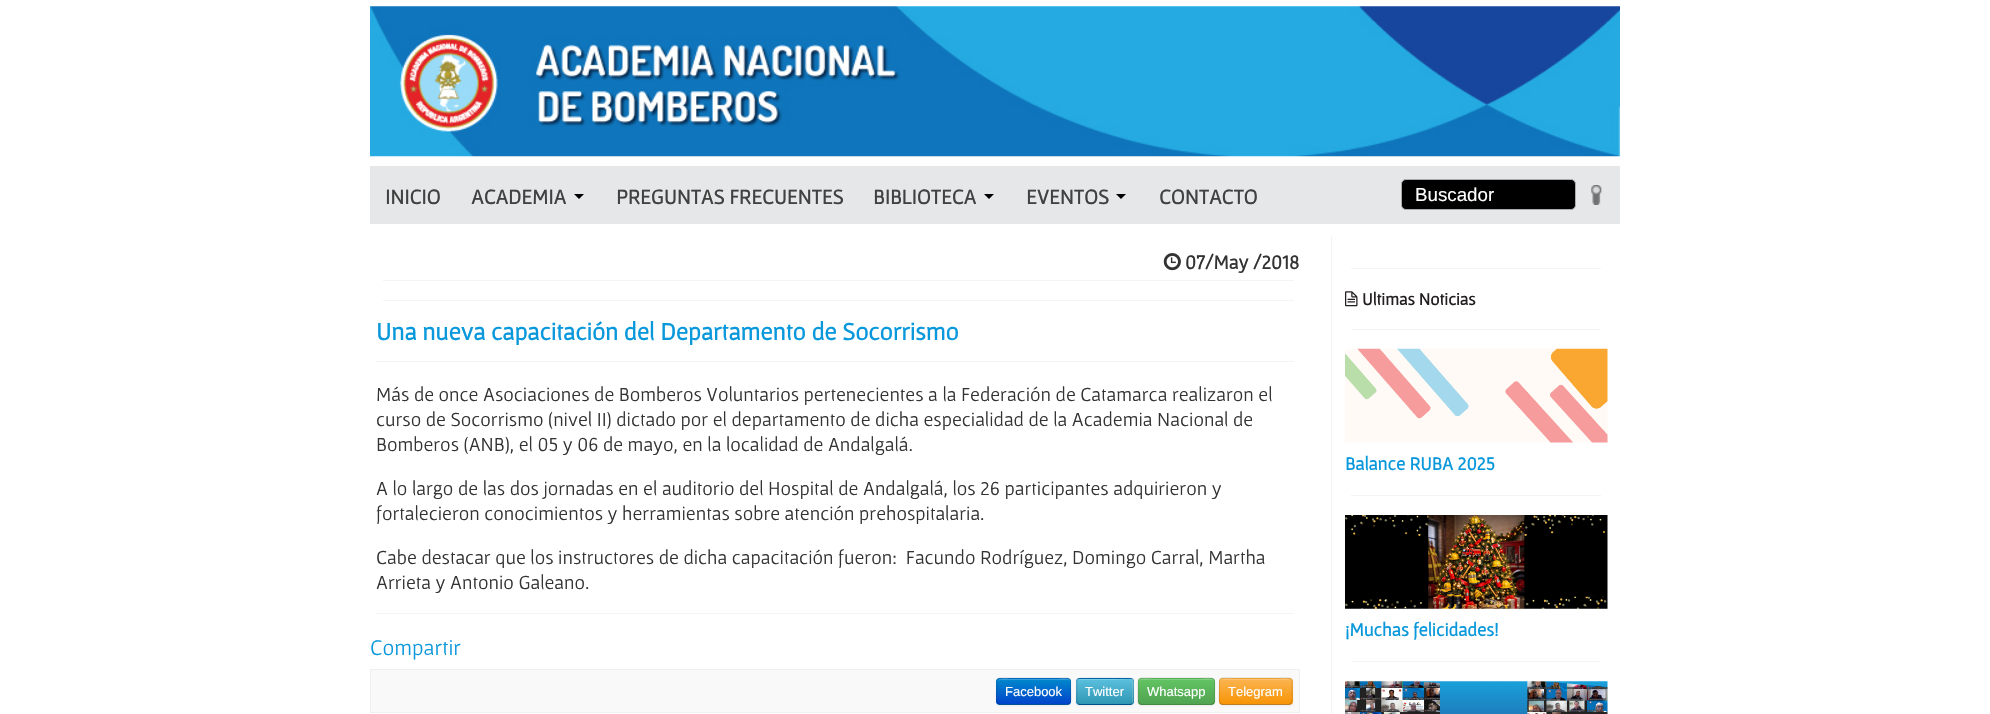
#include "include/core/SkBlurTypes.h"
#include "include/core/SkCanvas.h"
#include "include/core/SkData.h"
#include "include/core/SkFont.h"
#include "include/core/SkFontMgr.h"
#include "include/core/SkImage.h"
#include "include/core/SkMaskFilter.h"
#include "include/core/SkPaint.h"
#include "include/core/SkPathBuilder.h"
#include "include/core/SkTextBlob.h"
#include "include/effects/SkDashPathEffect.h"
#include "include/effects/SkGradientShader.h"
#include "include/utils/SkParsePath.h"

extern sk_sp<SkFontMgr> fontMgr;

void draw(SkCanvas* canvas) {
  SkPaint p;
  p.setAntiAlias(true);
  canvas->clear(SK_ColorWHITE);
  canvas->drawImageRect(SkImages::DeferredFromEncodedData(SkData::MakeFromFileName("images/1.png")), SkRect::MakeLTRB(370, 6, 1620, 157), SkSamplingOptions());
  p.setColor(SkColorSetRGB(230, 231, 232));
  canvas->drawRect(SkRect::MakeLTRB(370, 166, 1620, 224), p);
  p.setColor(SK_ColorBLACK);
  canvas->drawPath(SkPathBuilder().moveTo(574, 194).lineTo(584, 194).lineTo(579, 199).close().detach(), p);
  canvas->drawPath(SkPathBuilder().moveTo(984, 194).lineTo(994, 194).lineTo(989, 199).close().detach(), p);
  canvas->drawPath(SkPathBuilder().moveTo(1116, 194).lineTo(1126, 194).lineTo(1121, 199).close().detach(), p);
  canvas->drawRoundRect(SkRect::MakeLTRB(1401.5f, 179.5f, 1575.5f, 209.5f), 4.5f, 4.5f, p);
  p.setStyle(SkPaint::kStroke_Style);
  p.setStrokeWidth(1);
  p.setColor(SkColorSetRGB(171, 171, 171));
  canvas->drawRoundRect(SkRect::MakeLTRB(1401.5f, 179.5f, 1575.5f, 209.5f), 4.5f, 4.5f, p);
  canvas->drawImageRect(SkImages::DeferredFromEncodedData(SkData::MakeFromFileName("images/2.png")), SkRect::MakeLTRB(1591, 185, 1602, 205), SkSamplingOptions());
  canvas->drawImageRect(SkImages::DeferredFromEncodedData(SkData::MakeFromFileName("images/3.png")), SkRect::MakeLTRB(1163, 253, 1181, 271), SkSamplingOptions());
  p.setStyle(SkPaint::kFill_Style);
  p.setColor(SkColorSetRGB(244, 243, 245));
  canvas->drawRect(SkRect::MakeLTRB(383, 280, 1294, 281), p);
  canvas->drawRect(SkRect::MakeLTRB(383, 300, 1294, 301), p);
  canvas->drawRect(SkRect::MakeLTRB(376, 361, 1294, 362), p);
  canvas->drawRect(SkRect::MakeLTRB(376, 613, 1294, 614), p);
  p.setColor(SkColorSetRGB(249, 249, 249));
  canvas->drawRect(SkRect::MakeLTRB(370.5f, 669.5f, 1299.5f, 712.5f), p);
  p.setStyle(SkPaint::kStroke_Style);
  p.setColor(SkColorSetRGB(239, 239, 239));
  canvas->drawRect(SkRect::MakeLTRB(370.5f, 669.5f, 1299.5f, 712.5f), p);
  p.setStyle(SkPaint::kFill_Style);
  p.setColor(SkColorSetARGB(13, 0, 0, 0));
  p.setMaskFilter(SkMaskFilter::MakeBlur(kNormal_SkBlurStyle, 1));
  canvas->drawRoundRect(SkRect::MakeLTRB(996, 679, 1071, 706), 4, 4, p);
  p.setMaskFilter(nullptr);
  p.setColor(SkColorSetRGB(0, 109, 204));
  canvas->drawRoundRect(SkRect::MakeLTRB(996, 678, 1071, 705), 4, 4, p);
  canvas->save();
  canvas->clipPath(SkPathBuilder().moveTo(1000, 678).lineTo(1067, 678).cubicTo(1069, 678, 1071, 680, 1071, 682).lineTo(1071, 701).cubicTo(1071, 703, 1069, 705, 1067, 705).lineTo(1000, 705).cubicTo(998, 705, 996, 703, 996, 701).lineTo(996, 682).cubicTo(996, 680, 998, 678, 1000, 678).close().detach(), true);
  {
    const SkColor colors[] = {SkColorSetRGB(0, 136, 204), SkColorSetRGB(0, 68, 204)};
    const float stops[] = {0, 1};
    const SkPoint ends[] = {{1034, 679}, {1034, 704}};
    p.setShader(SkGradientShader::MakeLinear(ends, colors, stops, 2, SkTileMode::kClamp));
    p.setAlpha(255);
  }
  canvas->drawRect(SkRect::MakeLTRB(996, 679, 1071, 704), p);
  canvas->restore();
  p.setShader(nullptr);
  p.setColor(SkColorSetARGB(51, 255, 255, 255));
  canvas->drawPath(SkPathBuilder().moveTo(1000, 680).lineTo(1068, 680).cubicTo(1069, 680, 1070, 681, 1070, 682).cubicTo(1070, 676, 1058, 679, 1056, 679).lineTo(1012, 679).cubicTo(1010, 679, 998, 676, 998, 682).cubicTo(998, 681, 999, 680, 1000, 680).close().detach(), p);
  p.setStyle(SkPaint::kStroke_Style);
  p.setStrokeWidth(1.2f);
  p.setColor(SkColorSetARGB(64, 0, 0, 0));
  canvas->drawPath(SkPathBuilder().moveTo(1069.5f, 703.5f).lineTo(1068, 704.5f).lineTo(999.5f, 704.5f).lineTo(998, 703.5f).detach(), p);
  p.setColor(SkColorSetARGB(26, 0, 0, 0));
  canvas->drawPath(SkPathBuilder().moveTo(998, 703.5f).cubicTo(995.5f, 701.5f, 997, 694, 997, 691).cubicTo(997, 676, 995, 678, 1011, 678).lineTo(1056, 678).cubicTo(1072.5f, 678, 1070.5f, 676, 1070.5f, 691).cubicTo(1070.5f, 694, 1072, 701.5f, 1069.5f, 703.5f).detach(), p);
  p.setStyle(SkPaint::kFill_Style);
  p.setColor(SkColorSetARGB(13, 0, 0, 0));
  p.setMaskFilter(SkMaskFilter::MakeBlur(kNormal_SkBlurStyle, 1));
  canvas->drawRoundRect(SkRect::MakeLTRB(1076, 679, 1134, 706), 4, 4, p);
  p.setMaskFilter(nullptr);
  p.setColor(SkColorSetRGB(0, 108, 179));
  canvas->drawRoundRect(SkRect::MakeLTRB(1076, 678, 1134, 705), 4, 4, p);
  canvas->save();
  canvas->clipPath(SkPathBuilder().moveTo(1080, 678).lineTo(1130, 678).cubicTo(1132, 678, 1134, 680, 1134, 682).lineTo(1134, 701).cubicTo(1134, 703, 1132, 705, 1130, 705).lineTo(1080, 705).cubicTo(1078, 705, 1076, 703, 1076, 701).lineTo(1076, 682).cubicTo(1076, 680, 1078, 678, 1080, 678).close().detach(), true);
  {
    const SkColor colors[] = {SkColorSetRGB(91, 192, 222), SkColorSetRGB(47, 150, 180)};
    const float stops[] = {0, 1};
    const SkPoint ends[] = {{1105, 679}, {1105, 704}};
    p.setShader(SkGradientShader::MakeLinear(ends, colors, stops, 2, SkTileMode::kClamp));
    p.setAlpha(255);
  }
  canvas->drawRect(SkRect::MakeLTRB(1076, 679, 1134, 704), p);
  canvas->restore();
  p.setShader(nullptr);
  p.setColor(SkColorSetARGB(51, 255, 255, 255));
  canvas->drawPath(SkPathBuilder().moveTo(1080, 680).lineTo(1113, 680).cubicTo(1134, 680, 1132, 675, 1132, 692).lineTo(1132, 704).cubicTo(1132, 703, 1133, 702, 1133, 702).lineTo(1133, 682).cubicTo(1133, 680, 1132, 679, 1130, 679).lineTo(1080, 679).cubicTo(1079, 679, 1078, 680, 1078, 682).cubicTo(1078, 681, 1079, 680, 1080, 680).close().detach(), p);
  p.setStyle(SkPaint::kStroke_Style);
  p.setColor(SkColorSetARGB(64, 0, 0, 0));
  canvas->drawPath(SkPathBuilder().moveTo(1132, 703.5f).lineTo(1130.5f, 704.5f).lineTo(1079.5f, 704.5f).lineTo(1078, 703.5f).detach(), p);
  p.setColor(SkColorSetARGB(26, 0, 0, 0));
  canvas->drawPath(SkPathBuilder().moveTo(1078, 703.5f).cubicTo(1075.5f, 701.5f, 1077, 694, 1077, 691).cubicTo(1077, 677, 1074.5f, 678, 1088.5f, 678).lineTo(1121.5f, 678).cubicTo(1135.5f, 678, 1133, 677, 1133, 691).cubicTo(1133, 694, 1134.5f, 701.5f, 1132, 703.5f).detach(), p);
  p.setStyle(SkPaint::kFill_Style);
  p.setColor(SkColorSetARGB(13, 0, 0, 0));
  p.setMaskFilter(SkMaskFilter::MakeBlur(kNormal_SkBlurStyle, 1));
  canvas->drawRoundRect(SkRect::MakeLTRB(1138, 679, 1215, 706), 4, 4, p);
  p.setMaskFilter(nullptr);
  p.setColor(SkColorSetRGB(91, 183, 91));
  canvas->drawRoundRect(SkRect::MakeLTRB(1138, 678, 1215, 705), 4, 4, p);
  canvas->save();
  canvas->clipPath(SkPathBuilder().moveTo(1142, 678).lineTo(1211, 678).cubicTo(1213, 678, 1215, 680, 1215, 682).lineTo(1215, 701).cubicTo(1215, 703, 1213, 705, 1211, 705).lineTo(1142, 705).cubicTo(1140, 705, 1138, 703, 1138, 701).lineTo(1138, 682).cubicTo(1138, 680, 1140, 678, 1142, 678).close().detach(), true);
  {
    const SkColor colors[] = {SkColorSetRGB(98, 196, 98), SkColorSetRGB(81, 163, 81)};
    const float stops[] = {0, 1};
    const SkPoint ends[] = {{1176, 679}, {1176, 704}};
    p.setShader(SkGradientShader::MakeLinear(ends, colors, stops, 2, SkTileMode::kClamp));
    p.setAlpha(255);
  }
  canvas->drawRect(SkRect::MakeLTRB(1138, 679, 1215, 704), p);
  canvas->restore();
  p.setShader(nullptr);
  p.setColor(SkColorSetARGB(51, 255, 255, 255));
  canvas->drawPath(SkPathBuilder().moveTo(1141, 680).lineTo(1211, 680).cubicTo(1213, 680, 1214, 681, 1214, 682).cubicTo(1214, 676, 1201, 679, 1200, 679).lineTo(1153, 679).cubicTo(1152, 679, 1139, 676, 1139, 682).cubicTo(1139, 681, 1140, 680, 1141, 680).close().detach(), p);
  p.setStyle(SkPaint::kStroke_Style);
  p.setColor(SkColorSetARGB(64, 0, 0, 0));
  canvas->drawPath(SkPathBuilder().moveTo(1213.5f, 703.5f).lineTo(1211.5f, 704.5f).lineTo(1141, 704.5f).lineTo(1139, 703.5f).detach(), p);
  p.setColor(SkColorSetARGB(26, 0, 0, 0));
  canvas->drawPath(SkPathBuilder().moveTo(1139, 703.5f).cubicTo(1137, 701.5f, 1138, 694, 1138, 691).cubicTo(1138, 675.5f, 1136, 678, 1153, 678).lineTo(1199.5f, 678).cubicTo(1218, 678, 1214.5f, 676, 1214.5f, 694.5f).cubicTo(1214.5f, 697, 1215.5f, 701.5f, 1213.5f, 703.5f).detach(), p);
  p.setStyle(SkPaint::kFill_Style);
  p.setColor(SkColorSetARGB(13, 0, 0, 0));
  p.setMaskFilter(SkMaskFilter::MakeBlur(kNormal_SkBlurStyle, 1));
  canvas->drawRoundRect(SkRect::MakeLTRB(1219, 679, 1293, 706), 4, 4, p);
  p.setMaskFilter(nullptr);
  p.setColor(SkColorSetRGB(250, 167, 50));
  canvas->drawRoundRect(SkRect::MakeLTRB(1219, 678, 1293, 705), 4, 4, p);
  canvas->save();
  canvas->clipPath(SkPathBuilder().moveTo(1223, 678).lineTo(1289, 678).cubicTo(1291, 678, 1293, 680, 1293, 682).lineTo(1293, 701).cubicTo(1293, 703, 1291, 705, 1289, 705).lineTo(1223, 705).cubicTo(1221, 705, 1219, 703, 1219, 701).lineTo(1219, 682).cubicTo(1219, 680, 1221, 678, 1223, 678).close().detach(), true);
  {
    const SkColor colors[] = {SkColorSetRGB(251, 180, 80), SkColorSetRGB(248, 148, 6)};
    const float stops[] = {0, 1};
    const SkPoint ends[] = {{1256, 679}, {1256, 704}};
    p.setShader(SkGradientShader::MakeLinear(ends, colors, stops, 2, SkTileMode::kClamp));
    p.setAlpha(255);
  }
  canvas->drawRect(SkRect::MakeLTRB(1219, 679, 1293, 704), p);
  canvas->restore();
  p.setShader(nullptr);
  p.setColor(SkColorSetARGB(51, 255, 255, 255));
  canvas->drawPath(SkPathBuilder().moveTo(1222, 680).lineTo(1289, 680).cubicTo(1290, 680, 1291, 681, 1291, 682).cubicTo(1291, 676, 1279, 679, 1278, 679).lineTo(1234, 679).cubicTo(1232, 679, 1220, 676, 1220, 682).cubicTo(1220, 681, 1221, 680, 1222, 680).close().detach(), p);
  p.setStyle(SkPaint::kStroke_Style);
  p.setColor(SkColorSetARGB(64, 0, 0, 0));
  canvas->drawPath(SkPathBuilder().moveTo(1291, 703.5f).lineTo(1289, 704.5f).lineTo(1222, 704.5f).lineTo(1220.5f, 703.5f).detach(), p);
  p.setColor(SkColorSetARGB(26, 0, 0, 0));
  canvas->drawPath(SkPathBuilder().moveTo(1220.5f, 703.5f).cubicTo(1218, 701.5f, 1219.5f, 694, 1219.5f, 691).cubicTo(1219.5f, 676, 1217.5f, 678, 1233.5f, 678).lineTo(1277.5f, 678).cubicTo(1294, 678, 1292, 676, 1292, 691).cubicTo(1292, 694, 1293, 701.5f, 1291, 703.5f).detach(), p);
  p.setStyle(SkPaint::kFill_Style);
  p.setColor(SkColorSetRGB(244, 243, 245));
  canvas->drawRect(SkRect::MakeLTRB(1331, 236, 1332, 714), p);
  canvas->drawRect(SkRect::MakeLTRB(1351, 268, 1601, 269), p);
  canvas->drawImageRect(SkImages::DeferredFromEncodedData(SkData::MakeFromFileName("images/4.png")), SkRect::MakeLTRB(1345, 291, 1358, 307), SkSamplingOptions());
  canvas->drawRect(SkRect::MakeLTRB(1351, 329, 1601, 330), p);
  canvas->drawImageRect(SkImages::DeferredFromEncodedData(SkData::MakeFromFileName("images/5.png")), SkRect::MakeLTRB(1345, 348, 1608, 443), SkSamplingOptions());
  canvas->drawRect(SkRect::MakeLTRB(1351, 495, 1601, 496), p);
  canvas->drawImageRect(SkImages::DeferredFromEncodedData(SkData::MakeFromFileName("images/6.png")), SkRect::MakeLTRB(1345, 515, 1608, 609), SkSamplingOptions());
  canvas->drawRect(SkRect::MakeLTRB(1351, 661, 1601, 662), p);
  canvas->drawImageRect(SkImages::DeferredFromEncodedData(SkData::MakeFromFileName("images/7.png")), SkRect::MakeLTRB(1345, 681, 1608, 714), SkSamplingOptions());
  SkFont font1(fontMgr->matchFamilyStyle("Gafata", SkFontStyle::Bold()), 21.25f);
  font1.setSubpixel(true);
  p.setColor(SkColorSetRGB(65, 65, 65));
  canvas->drawString("INICIO", 385, 204, font1, p);
  canvas->drawString("ACADEMIA", 471, 204, font1, p);
  canvas->drawString("PREGUNTAS FRECUENTES", 616, 204, font1, p);
  canvas->drawString("BIBLIOTECA", 873, 204, font1, p);
  canvas->drawString("EVENTOS", 1026, 204, font1, p);
  canvas->drawString("CONTACTO", 1159, 204, font1, p);
  SkFont font2(fontMgr->matchFamilyStyle("Arimo", SkFontStyle::Normal()), 18.75f);
  font2.setSubpixel(true);
  p.setColor(SK_ColorWHITE);
  canvas->drawString("Buscador", 1415, 201, font2, p);
  SkFont font3(fontMgr->matchFamilyStyle("Gafata", SkFontStyle::Bold()), 20);
  font3.setSubpixel(true);
  p.setColor(SkColorSetRGB(51, 51, 51));
  canvas->drawString("07/May /2018", 1185, 269, font3, p);
  SkFont font4(fontMgr->matchFamilyStyle("Gafata", SkFontStyle::Bold()), 25);
  font4.setSubpixel(true);
  p.setColor(SkColorSetRGB(9, 152, 219));
  canvas->drawString("Una nueva capacitación del Departamento de Socorrismo", 376, 340, font4, p);
  SkFont font5(fontMgr->matchFamilyStyle("Gafata", SkFontStyle::Normal()), 20);
  font5.setSubpixel(true);
  p.setColor(SkColorSetRGB(51, 51, 51));
  canvas->drawString("Más de once Asociaciones de Bomberos Voluntarios pertenecientes a la Federación de Catamarca realizaron el", 376, 401, font5, p);
  canvas->drawString("curso de Socorrismo (nivel II) dictado por el departamento de dicha especialidad de la Academia Nacional de", 376, 426, font5, p);
  canvas->drawString("Bomberos (ANB), el 05 y 06 de mayo, en la localidad de Andalgalá.", 376, 451, font5, p);
  canvas->drawString("A lo largo de las dos jornadas en el auditorio del Hospital de Andalgalá, los 26 participantes adquirieron y", 376, 495, font5, p);
  canvas->drawString("fortalecieron conocimientos y herramientas sobre atención prehospitalaria.", 376, 520, font5, p);
  canvas->drawString("Cabe destacar que los instructores de dicha capacitación fueron:  Facundo Rodríguez, Domingo Carral, Martha", 376, 564, font5, p);
  canvas->drawString("Arrieta y Antonio Galeano.", 376, 589, font5, p);
  SkFont font6(fontMgr->matchFamilyStyle("Gafata", SkFontStyle::Normal()), 22.5f);
  font6.setSubpixel(true);
  p.setColor(SkColorSetRGB(9, 152, 219));
  canvas->drawString("Compartir", 370, 655, font6, p);
  SkFont font7(fontMgr->matchFamilyStyle("Liberation Sans", SkFontStyle::Normal()), 13);
  font7.setSubpixel(true);
  p.setColor(SK_ColorWHITE);
  canvas->drawString("Facebook", 1005, 696, font7, p);
  canvas->drawString("Twitter", 1085, 696, font7, p);
  canvas->drawString("Whatsapp", 1147, 696, font7, p);
  canvas->drawString("Telegram", 1228, 696, font7, p);
  SkFont font8(fontMgr->matchFamilyStyle("Gafata", SkFontStyle::Bold()), 17.5f);
  font8.setSubpixel(true);
  p.setColor(SkColorSetRGB(35, 31, 32));
  canvas->drawString("Ultimas Noticias", 1362, 305, font8, p);
  SkFont font9(fontMgr->matchFamilyStyle("Gafata", SkFontStyle::Bold()), 18.75f);
  font9.setSubpixel(true);
  p.setColor(SkColorSetRGB(9, 152, 219));
  canvas->drawString("Balance RUBA 2025", 1345, 470, font9, p);
  canvas->drawString("¡Muchas felicidades!", 1345, 636, font9, p);
}
